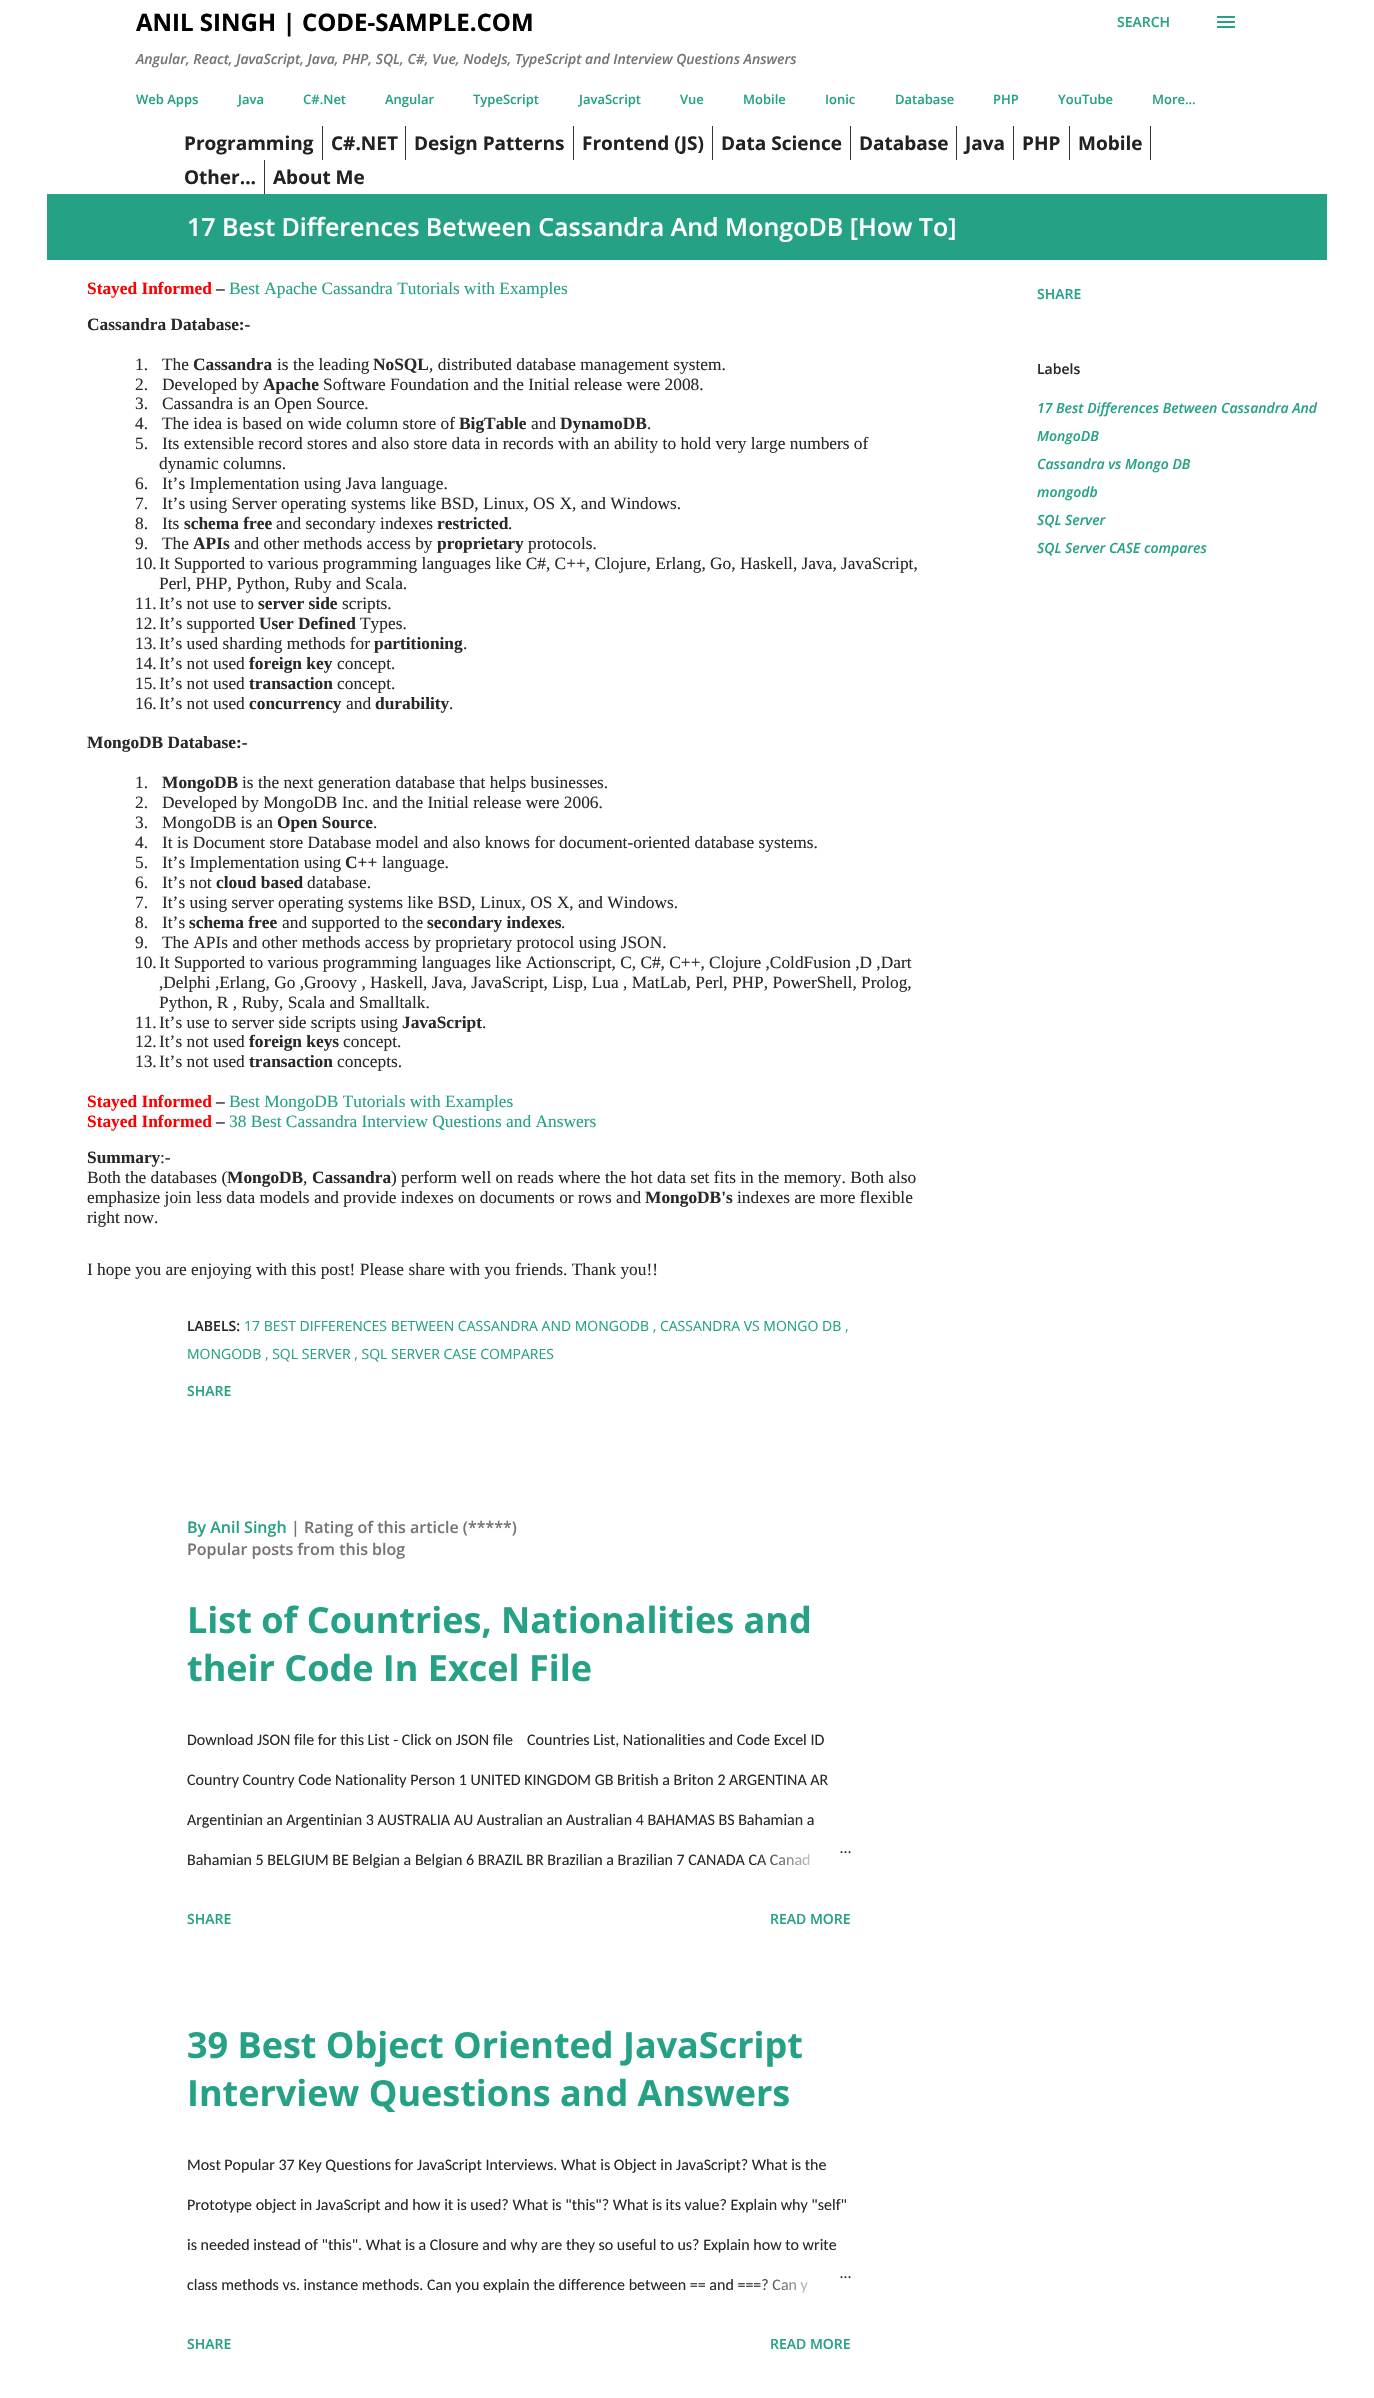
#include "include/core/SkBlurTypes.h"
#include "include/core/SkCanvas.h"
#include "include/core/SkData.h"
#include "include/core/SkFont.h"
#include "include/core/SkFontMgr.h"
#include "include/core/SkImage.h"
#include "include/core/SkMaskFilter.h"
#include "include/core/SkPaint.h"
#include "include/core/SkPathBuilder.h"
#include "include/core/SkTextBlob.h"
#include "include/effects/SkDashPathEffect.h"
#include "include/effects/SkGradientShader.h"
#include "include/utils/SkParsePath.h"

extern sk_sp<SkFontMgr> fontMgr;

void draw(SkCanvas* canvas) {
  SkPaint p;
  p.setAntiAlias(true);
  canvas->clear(SK_ColorWHITE);
  canvas->drawImageRect(SkImages::DeferredFromEncodedData(SkData::MakeFromFileName("images/1.png")), SkRect::MakeLTRB(1217, 16, 1235, 28), SkSamplingOptions());
  p.setColor(SkColorSetRGB(51, 51, 51));
  canvas->drawRect(SkRect::MakeLTRB(322, 126, 323, 160), p);
  canvas->drawRect(SkRect::MakeLTRB(405, 126, 406, 160), p);
  canvas->drawRect(SkRect::MakeLTRB(573, 126, 574, 160), p);
  canvas->drawRect(SkRect::MakeLTRB(712, 126, 713, 160), p);
  canvas->drawRect(SkRect::MakeLTRB(850, 126, 851, 160), p);
  canvas->drawRect(SkRect::MakeLTRB(956, 126, 957, 160), p);
  canvas->drawRect(SkRect::MakeLTRB(1013, 126, 1014, 160), p);
  canvas->drawRect(SkRect::MakeLTRB(1069, 126, 1070, 160), p);
  canvas->drawRect(SkRect::MakeLTRB(1150, 126, 1151, 160), p);
  canvas->drawRect(SkRect::MakeLTRB(264, 160, 265, 194), p);
  p.setColor(SkColorSetRGB(37, 161, 134));
  canvas->drawRect(SkRect::MakeLTRB(47, 194, 1327, 260), p);
  SkFont font1(fontMgr->matchFamilyStyle("Open Sans", SkFontStyle::Bold()), 24);
  font1.setSubpixel(true);
  p.setColor(SK_ColorBLACK);
  canvas->drawString("ANIL SINGH | CODE-SAMPLE.COM", 136, 31, font1, p);
  SkFont font2(fontMgr->matchFamilyStyle("Open Sans", SkFontStyle(600, SkFontStyle::kNormal_Width, SkFontStyle::kItalic_Slant)), 14);
  font2.setSubpixel(true);
  p.setColor(SkColorSetRGB(117, 117, 117));
  canvas->drawString("Angular, React, JavaScript, Java, PHP, SQL, C#, Vue, NodeJs, TypeScript and Interview Questions Answers", 136, 64, font2, p);
  SkFont font3(fontMgr->matchFamilyStyle("Open Sans", SkFontStyle(600, SkFontStyle::kNormal_Width, SkFontStyle::kUpright_Slant)), 14);
  font3.setSubpixel(true);
  p.setColor(SkColorSetRGB(37, 161, 134));
  canvas->drawString("SEARCH", 1117, 27, font3, p);
  SkFont font4(fontMgr->matchFamilyStyle("Open Sans", SkFontStyle(600, SkFontStyle::kNormal_Width, SkFontStyle::kUpright_Slant)), 13);
  font4.setSubpixel(true);
  canvas->drawString("Web Apps", 136, 104, font4, p);
  canvas->drawString("Java", 238, 104, font4, p);
  canvas->drawString("C#.Net", 303, 104, font4, p);
  canvas->drawString("Angular", 385, 104, font4, p);
  canvas->drawString("TypeScript", 473, 104, font4, p);
  canvas->drawString("JavaScript", 579, 104, font4, p);
  canvas->drawString("Vue", 680, 104, font4, p);
  canvas->drawString("Mobile", 743, 104, font4, p);
  canvas->drawString("Ionic", 825, 104, font4, p);
  canvas->drawString("Database", 895, 104, font4, p);
  canvas->drawString("PHP", 993, 104, font4, p);
  canvas->drawString("YouTube", 1058, 104, font4, p);
  canvas->drawString("More…", 1152, 104, font4, p);
  SkFont font5(fontMgr->matchFamilyStyle("Open Sans", SkFontStyle::Bold()), 19);
  font5.setSubpixel(true);
  p.setColor(SkColorSetRGB(34, 34, 34));
  canvas->drawString("Programming", 184, 150, font5, p);
  canvas->drawString("C#.NET", 331, 150, font5, p);
  canvas->drawString("Design Patterns", 414, 150, font5, p);
  canvas->drawString("Frontend (JS)", 582, 150, font5, p);
  canvas->drawString("Data Science", 721, 150, font5, p);
  canvas->drawString("Database", 859, 150, font5, p);
  canvas->drawString("Java", 965, 150, font5, p);
  canvas->drawString("PHP", 1022, 150, font5, p);
  canvas->drawString("Mobile", 1078, 150, font5, p);
  canvas->drawString("Other...", 184, 184, font5, p);
  canvas->drawString("About Me", 273, 184, font5, p);
  SkFont font6(fontMgr->matchFamilyStyle("Open Sans", SkFontStyle(600, SkFontStyle::kNormal_Width, SkFontStyle::kUpright_Slant)), 25);
  font6.setSubpixel(true);
  p.setColor(SK_ColorWHITE);
  canvas->drawString("17 Best Differences Between Cassandra And MongoDB [How To]", 187, 236, font6, p);
  SkFont font7(fontMgr->matchFamilyStyle("Liberation Serif", SkFontStyle::Bold()), 17.35f);
  font7.setSubpixel(true);
  p.setColor(SkColorSetRGB(255, 0, 0));
  canvas->drawString("Stayed Informed", 87, 294, font7, p);
  p.setColor(SkColorSetRGB(41, 41, 41));
  canvas->drawString("–", 216, 294, font7, p);
  SkFont font8(fontMgr->matchFamilyStyle("Liberation Serif", SkFontStyle::Normal()), 17.35f);
  font8.setSubpixel(true);
  p.setColor(SkColorSetRGB(37, 161, 134));
  canvas->drawString("Best Apache Cassandra Tutorials with Examples", 229, 294, font8, p);
  p.setColor(SkColorSetRGB(41, 41, 41));
  canvas->drawString("Cassandra Database:-", 87, 330, font7, p);
  canvas->drawString("1.", 135, 370, font8, p);
  canvas->drawString("The", 162, 370, font8, p);
  canvas->drawString("Cassandra", 193, 370, font7, p);
  canvas->drawString("is the leading", 277, 370, font8, p);
  canvas->drawString("NoSQL", 373, 370, font7, p);
  canvas->drawString(", distributed database management system.", 429, 370, font8, p);
  canvas->drawString("2.", 135, 390, font8, p);
  canvas->drawString("Developed by", 162, 390, font8, p);
  canvas->drawString("Apache", 263, 390, font7, p);
  canvas->drawString("Software Foundation and the Initial release were 2008.", 323, 390, font8, p);
  canvas->drawString("3.", 135, 409, font8, p);
  canvas->drawString("Cassandra is an Open Source.", 162, 409, font8, p);
  canvas->drawString("4.", 135, 429, font8, p);
  canvas->drawString("The idea is based on wide column store of", 162, 429, font8, p);
  canvas->drawString("BigTable", 459, 429, font7, p);
  canvas->drawString("and", 531, 429, font8, p);
  canvas->drawString("DynamoDB", 560, 429, font7, p);
  canvas->drawString(".", 647, 429, font8, p);
  canvas->drawString("5.", 135, 449, font8, p);
  canvas->drawString("Its extensible record stores and also store data in records with an ability to hold very large numbers of", 162, 449, font8, p);
  canvas->drawString("dynamic columns.", 159, 469, font8, p);
  canvas->drawString("6.", 135, 489, font8, p);
  canvas->drawString("It’s Implementation using Java language.", 162, 489, font8, p);
  canvas->drawString("7.", 135, 509, font8, p);
  canvas->drawString("It’s using Server operating systems like BSD, Linux, OS X, and Windows.", 162, 509, font8, p);
  canvas->drawString("8.", 135, 529, font8, p);
  canvas->drawString("Its", 162, 529, font8, p);
  canvas->drawString("schema free", 184, 529, font7, p);
  canvas->drawString("and secondary indexes", 276, 529, font8, p);
  canvas->drawString("restricted", 437, 529, font7, p);
  canvas->drawString(".", 508, 529, font8, p);
  canvas->drawString("9.", 135, 549, font8, p);
  canvas->drawString("The", 162, 549, font8, p);
  canvas->drawString("APIs", 193, 549, font7, p);
  canvas->drawString("and other methods access by", 234, 549, font8, p);
  canvas->drawString("proprietary", 437, 549, font7, p);
  canvas->drawString("protocols.", 528, 549, font8, p);
  canvas->drawString("10.", 135, 569, font8, p);
  canvas->drawString("It Supported to various programming languages like C#, C++, Clojure, Erlang, Go, Haskell, Java, JavaScript,", 159, 569, font8, p);
  canvas->drawString("Perl, PHP, Python, Ruby and Scala.", 159, 589, font8, p);
  canvas->drawString("11.", 135, 609, font8, p);
  canvas->drawString("It’s not use to", 159, 609, font8, p);
  canvas->drawString("server side", 258, 609, font7, p);
  canvas->drawString("scripts.", 342, 609, font8, p);
  canvas->drawString("12.", 135, 629, font8, p);
  canvas->drawString("It’s supported", 159, 629, font8, p);
  canvas->drawString("User Defined", 259, 629, font7, p);
  canvas->drawString("Types.", 360, 629, font8, p);
  canvas->drawString("13.", 135, 649, font8, p);
  canvas->drawString("It’s used sharding methods for", 159, 649, font8, p);
  canvas->drawString("partitioning", 374, 649, font7, p);
  canvas->drawString(".", 463, 649, font8, p);
  canvas->drawString("14.", 135, 669, font8, p);
  canvas->drawString("It’s not used", 159, 669, font8, p);
  canvas->drawString("foreign key", 249, 669, font7, p);
  canvas->drawString("concept.", 337, 669, font8, p);
  canvas->drawString("15.", 135, 689, font8, p);
  canvas->drawString("It’s not used", 159, 689, font8, p);
  canvas->drawString("transaction", 249, 689, font7, p);
  canvas->drawString("concept.", 337, 689, font8, p);
  canvas->drawString("16.", 135, 709, font8, p);
  canvas->drawString("It’s not used", 159, 709, font8, p);
  canvas->drawString("concurrency", 249, 709, font7, p);
  canvas->drawString("and", 346, 709, font8, p);
  canvas->drawString("durability", 375, 709, font7, p);
  canvas->drawString(".", 449, 709, font8, p);
  canvas->drawString("MongoDB Database:-", 87, 748, font7, p);
  canvas->drawString("1.", 135, 788, font8, p);
  canvas->drawString("MongoDB", 162, 788, font7, p);
  canvas->drawString("is the next generation database that helps businesses.", 242, 788, font8, p);
  canvas->drawString("2.", 135, 808, font8, p);
  canvas->drawString("Developed by MongoDB Inc. and the Initial release were 2006.", 162, 808, font8, p);
  canvas->drawString("3.", 135, 828, font8, p);
  canvas->drawString("MongoDB is an", 162, 828, font8, p);
  canvas->drawString("Open Source", 277, 828, font7, p);
  canvas->drawString(".", 373, 828, font8, p);
  canvas->drawString("4.", 135, 848, font8, p);
  canvas->drawString("It is Document store Database model and also knows for document-oriented database systems.", 162, 848, font8, p);
  canvas->drawString("5.", 135, 868, font8, p);
  canvas->drawString("It’s Implementation using", 162, 868, font8, p);
  canvas->drawString("C++", 345, 868, font7, p);
  canvas->drawString("language.", 382, 868, font8, p);
  canvas->drawString("6.", 135, 888, font8, p);
  canvas->drawString("It’s not", 162, 888, font8, p);
  canvas->drawString("cloud based", 216, 888, font7, p);
  canvas->drawString("database.", 307, 888, font8, p);
  canvas->drawString("7.", 135, 908, font8, p);
  canvas->drawString("It’s using server operating systems like BSD, Linux, OS X, and Windows.", 162, 908, font8, p);
  canvas->drawString("8.", 135, 928, font8, p);
  canvas->drawString("It’s", 162, 928, font8, p);
  canvas->drawString("schema free", 189, 928, font7, p);
  canvas->drawString("and supported to the", 282, 928, font8, p);
  canvas->drawString("secondary indexes", 427, 928, font7, p);
  canvas->drawString(".", 561, 928, font8, p);
  canvas->drawString("9.", 135, 948, font8, p);
  canvas->drawString("The APIs and other methods access by proprietary protocol using JSON.", 162, 948, font8, p);
  canvas->drawString("10.", 135, 968, font8, p);
  canvas->drawString("It Supported to various programming languages like Actionscript, C, C#, C++, Clojure ,ColdFusion ,D ,Dart", 159, 968, font8, p);
  canvas->drawString(",Delphi ,Erlang, Go ,Groovy , Haskell, Java, JavaScript, Lisp, Lua , MatLab, Perl, PHP, PowerShell, Prolog,", 159, 988, font8, p);
  canvas->drawString("Python, R , Ruby, Scala and Smalltalk.", 159, 1008, font8, p);
  canvas->drawString("11.", 135, 1028, font8, p);
  canvas->drawString("It’s use to server side scripts using", 159, 1028, font8, p);
  canvas->drawString("JavaScript", 402, 1028, font7, p);
  canvas->drawString(".", 482, 1028, font8, p);
  canvas->drawString("12.", 135, 1047, font8, p);
  canvas->drawString("It’s not used", 159, 1047, font8, p);
  canvas->drawString("foreign keys", 249, 1047, font7, p);
  canvas->drawString("concept.", 343, 1047, font8, p);
  canvas->drawString("13.", 135, 1067, font8, p);
  canvas->drawString("It’s not used", 159, 1067, font8, p);
  canvas->drawString("transaction", 249, 1067, font7, p);
  canvas->drawString("concepts.", 337, 1067, font8, p);
  p.setColor(SkColorSetRGB(255, 0, 0));
  canvas->drawString("Stayed Informed", 87, 1107, font7, p);
  p.setColor(SkColorSetRGB(41, 41, 41));
  canvas->drawString("–", 216, 1107, font7, p);
  p.setColor(SkColorSetRGB(37, 161, 134));
  canvas->drawString("Best MongoDB Tutorials with Examples", 229, 1107, font8, p);
  p.setColor(SkColorSetRGB(255, 0, 0));
  canvas->drawString("Stayed Informed", 87, 1127, font7, p);
  p.setColor(SkColorSetRGB(41, 41, 41));
  canvas->drawString("–", 216, 1127, font7, p);
  p.setColor(SkColorSetRGB(37, 161, 134));
  canvas->drawString("38 Best Cassandra Interview Questions and Answers", 229, 1127, font8, p);
  p.setColor(SkColorSetRGB(41, 41, 41));
  canvas->drawString("Summary", 87, 1163, font7, p);
  canvas->drawString(":-", 160, 1163, font8, p);
  canvas->drawString("Both the databases (", 87, 1183, font8, p);
  canvas->drawString("MongoDB", 227, 1183, font7, p);
  canvas->drawString(",", 303, 1183, font8, p);
  canvas->drawString("Cassandra", 312, 1183, font7, p);
  canvas->drawString(") perform well on reads where the hot data set fits in the memory. Both also", 391, 1183, font8, p);
  canvas->drawString("emphasize join less data models and provide indexes on documents or rows and", 87, 1203, font8, p);
  canvas->drawString("MongoDB's", 645, 1203, font7, p);
  canvas->drawString("indexes are more flexible", 737, 1203, font8, p);
  canvas->drawString("right now.", 87, 1223, font8, p);
  canvas->drawString("I hope you are enjoying with this post! Please share with you friends. Thank you!!", 87, 1275, font8, p);
  p.setColor(SkColorSetRGB(37, 161, 134));
  canvas->drawString("SHARE", 1037, 299, font3, p);
  p.setColor(SkColorSetRGB(41, 41, 41));
  canvas->drawString("Labels", 1037, 374, font3, p);
  p.setColor(SkColorSetRGB(37, 161, 134));
  canvas->drawString("17 Best Differences Between Cassandra And", 1037, 413, font2, p);
  canvas->drawString("MongoDB", 1037, 441, font2, p);
  canvas->drawString("Cassandra vs Mongo DB", 1037, 469, font2, p);
  canvas->drawString("mongodb", 1037, 497, font2, p);
  canvas->drawString("SQL Server", 1037, 525, font2, p);
  canvas->drawString("SQL Server CASE compares", 1037, 553, font2, p);
  p.setColor(SkColorSetRGB(41, 41, 41));
  canvas->drawString("LABELS:", 187, 1331, font3, p);
  SkFont font9(fontMgr->matchFamilyStyle("Open Sans", SkFontStyle::Normal()), 14);
  font9.setSubpixel(true);
  p.setColor(SkColorSetRGB(37, 161, 134));
  canvas->drawString("17 BEST DIFFERENCES BETWEEN CASSANDRA AND MONGODB , CASSANDRA VS MONGO DB ,", 244, 1331, font9, p);
  canvas->drawString("MONGODB , SQL SERVER , SQL SERVER CASE COMPARES", 187, 1359, font9, p);
  canvas->drawString("SHARE", 187, 1396, font3, p);
  SkFont font10(fontMgr->matchFamilyStyle("Open Sans", SkFontStyle(600, SkFontStyle::kNormal_Width, SkFontStyle::kUpright_Slant)), 16);
  font10.setSubpixel(true);
  canvas->drawString("By Anil Singh", 187, 1533, font10, p);
  p.setColor(SkColorSetRGB(117, 117, 117));
  canvas->drawString("| Rating of this article (*****)", 291, 1533, font10, p);
  canvas->drawString("Popular posts from this blog", 187, 1555, font10, p);
  SkFont font11(fontMgr->matchFamilyStyle("Open Sans", SkFontStyle::Bold()), 36);
  font11.setSubpixel(true);
  p.setColor(SkColorSetRGB(37, 161, 134));
  canvas->drawString("List of Countries, Nationalities and", 187, 1633, font11, p);
  canvas->drawString("their Code In Excel File", 187, 1681, font11, p);
  SkFont font12(fontMgr->matchFamilyStyle("Carlito", SkFontStyle::Normal()), 16);
  font12.setSubpixel(true);
  p.setColor(SkColorSetRGB(41, 41, 41));
  canvas->drawString("Download JSON file for this List - Click on JSON file", 187, 1745, font12, p);
  canvas->drawString("Countries List, Nationalities and Code Excel ID", 527, 1745, font12, p);
  canvas->drawString("Country Country Code Nationality Person 1 UNITED KINGDOM GB British a Briton 2 ARGENTINA AR", 187, 1785, font12, p);
  canvas->drawString("Argentinian an Argentinian 3 AUSTRALIA AU Australian an Australian 4 BAHAMAS BS Bahamian a", 187, 1825, font12, p);
  canvas->drawString("Bahamian 5 BELGIUM BE Belgian a Belgian 6 BRAZIL BR Brazilian a Brazilian 7 CANADA CA Canad", 187, 1865, font12, p);
  {
    const SkColor colors[] = {SK_ColorWHITE, SK_ColorWHITE, SkColorSetARGB(0, 255, 255, 255)};
    const float stops[] = {0, 0.2f, 1};
    const SkPoint ends[] = {{851, 1860}, {755, 1860}};
    p.setShader(SkGradientShader::MakeLinear(ends, colors, stops, 3, SkTileMode::kClamp));
    p.setAlpha(255);
  }
  canvas->drawRect(SkRect::MakeLTRB(757, 1853, 810, 1866), p);
  p.setShader(nullptr);
  p.setColor(SkColorSetRGB(41, 41, 41));
  canvas->drawString("…", 840, 1853, font12, p);
  p.setColor(SkColorSetRGB(37, 161, 134));
  canvas->drawString("SHARE", 187, 1924, font3, p);
  canvas->drawString("READ MORE", 770, 1924, font3, p);
  canvas->drawString("39 Best Object Oriented JavaScript", 187, 2058, font11, p);
  canvas->drawString("Interview Questions and Answers", 187, 2106, font11, p);
  p.setColor(SkColorSetRGB(41, 41, 41));
  canvas->drawString("Most Popular 37 Key Questions for JavaScript Interviews. What is Object in JavaScript? What is the", 187, 2170, font12, p);
  canvas->drawString("Prototype object in JavaScript and how it is used? What is \"this\"? What is its value? Explain why \"self\"", 187, 2210, font12, p);
  canvas->drawString("is needed instead of \"this\". What is a Closure and why are they so useful to us? Explain how to write", 187, 2250, font12, p);
  canvas->drawString("class methods vs. instance methods. Can you explain the difference between == and ===? Can y", 187, 2290, font12, p);
  {
    const SkColor colors[] = {SK_ColorWHITE, SK_ColorWHITE, SkColorSetARGB(0, 255, 255, 255)};
    const float stops[] = {0, 0.2f, 1};
    const SkPoint ends[] = {{851, 2285}, {755, 2285}};
    p.setShader(SkGradientShader::MakeLinear(ends, colors, stops, 3, SkTileMode::kClamp));
    p.setAlpha(255);
  }
  canvas->drawRect(SkRect::MakeLTRB(757, 2279, 808, 2293), p);
  p.setShader(nullptr);
  p.setColor(SkColorSetRGB(41, 41, 41));
  canvas->drawString("…", 840, 2278, font12, p);
  p.setColor(SkColorSetRGB(37, 161, 134));
  canvas->drawString("SHARE", 187, 2349, font3, p);
  canvas->drawString("READ MORE", 770, 2349, font3, p);
}
